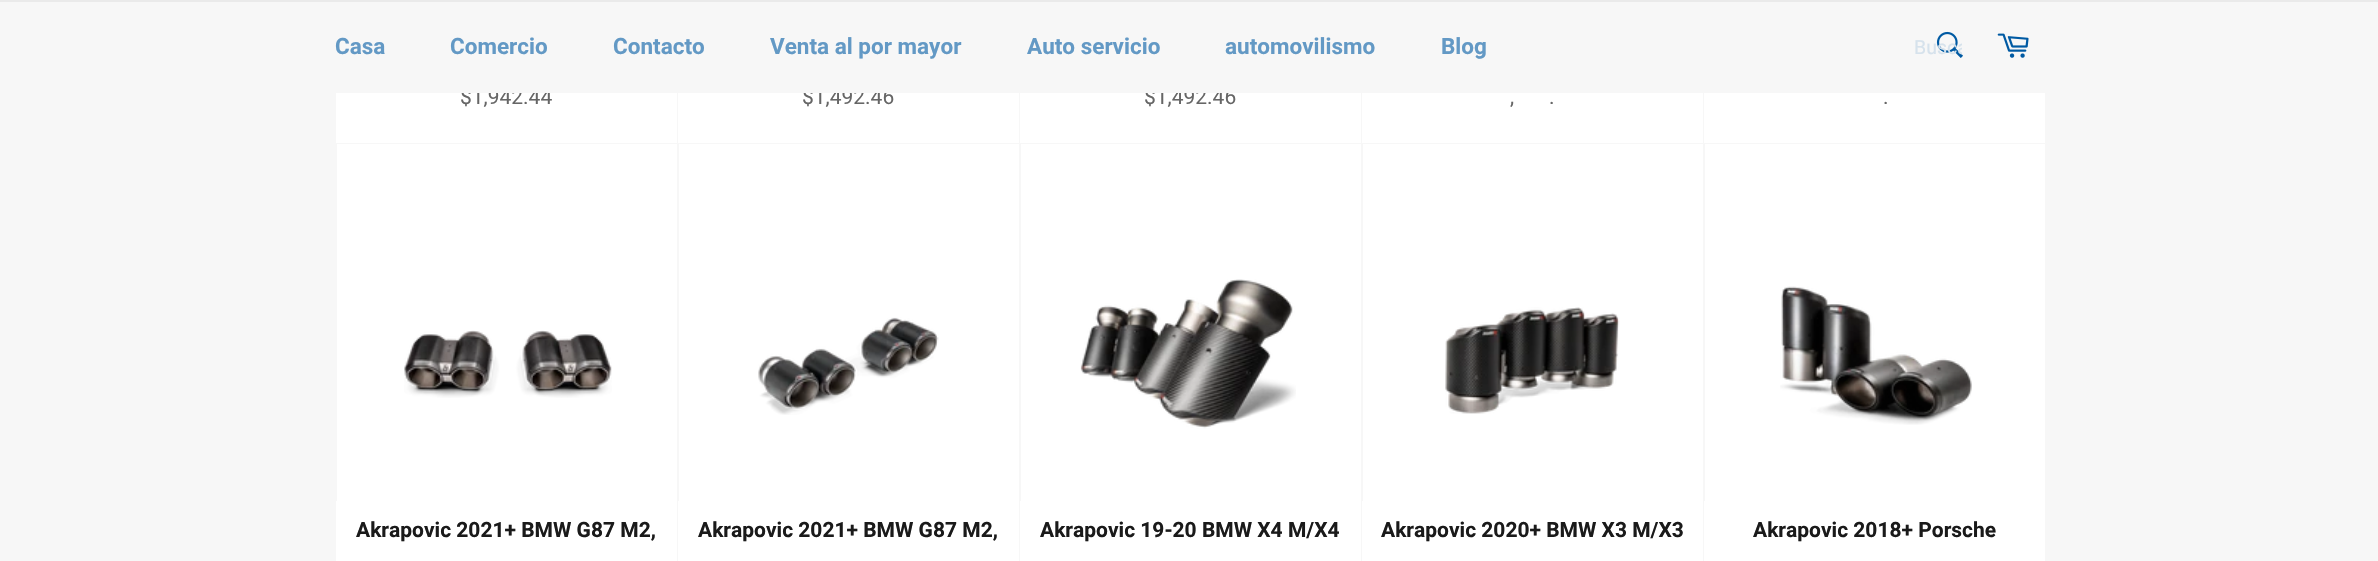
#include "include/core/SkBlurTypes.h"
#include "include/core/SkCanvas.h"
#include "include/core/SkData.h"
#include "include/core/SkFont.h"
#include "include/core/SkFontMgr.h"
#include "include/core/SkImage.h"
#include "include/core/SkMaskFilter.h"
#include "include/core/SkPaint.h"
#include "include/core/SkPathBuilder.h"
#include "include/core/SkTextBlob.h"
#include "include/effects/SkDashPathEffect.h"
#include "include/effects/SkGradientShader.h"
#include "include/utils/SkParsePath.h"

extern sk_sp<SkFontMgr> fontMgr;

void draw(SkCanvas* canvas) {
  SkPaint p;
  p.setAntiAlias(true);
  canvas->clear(SkColorSetRGB(247, 247, 247));
  p.setColor(SkColorSetRGB(234, 234, 234));
  canvas->drawRect(SkRect::MakeLTRB(0, 0, 2378, 2), p);
  canvas->drawImageRect(SkImages::DeferredFromEncodedData(SkData::MakeFromFileName("images/1.png")), SkRect::MakeLTRB(1936, 31, 1963, 58), SkSamplingOptions());
  canvas->drawImageRect(SkImages::DeferredFromEncodedData(SkData::MakeFromFileName("images/2.png")), SkRect::MakeLTRB(1997, 33, 2029, 58), SkSamplingOptions());
  p.setColor(SK_ColorWHITE);
  canvas->drawRect(SkRect::MakeLTRB(336, 93, 677, 143), p);
  canvas->drawRect(SkRect::MakeLTRB(678, 93, 1019, 143), p);
  canvas->drawRect(SkRect::MakeLTRB(1020, 93, 1361, 143), p);
  canvas->drawRect(SkRect::MakeLTRB(1362, 93, 1703, 143), p);
  canvas->drawRect(SkRect::MakeLTRB(1704, 93, 2045, 143), p);
  canvas->drawRect(SkRect::MakeLTRB(337, 144, 677, 501), p);
  canvas->drawImageRect(SkImages::DeferredFromEncodedData(SkData::MakeFromFileName("images/3.png")), SkRect::MakeLTRB(404, 330, 612, 398), SkSamplingOptions());
  canvas->drawRect(SkRect::MakeLTRB(336, 501, 677, 561), p);
  canvas->drawRect(SkRect::MakeLTRB(679, 144, 1019, 501), p);
  canvas->drawImageRect(SkImages::DeferredFromEncodedData(SkData::MakeFromFileName("images/4.png")), SkRect::MakeLTRB(758, 317, 939, 415), SkSamplingOptions());
  canvas->drawRect(SkRect::MakeLTRB(678, 501, 1019, 561), p);
  canvas->drawRect(SkRect::MakeLTRB(1021, 144, 1361, 501), p);
  canvas->drawImageRect(SkImages::DeferredFromEncodedData(SkData::MakeFromFileName("images/5.png")), SkRect::MakeLTRB(1080, 279, 1296, 429), SkSamplingOptions());
  canvas->drawRect(SkRect::MakeLTRB(1020, 501, 1361, 561), p);
  canvas->drawRect(SkRect::MakeLTRB(1363, 144, 1703, 501), p);
  canvas->drawImageRect(SkImages::DeferredFromEncodedData(SkData::MakeFromFileName("images/6.png")), SkRect::MakeLTRB(1445, 307, 1620, 414), SkSamplingOptions());
  canvas->drawRect(SkRect::MakeLTRB(1362, 501, 1703, 561), p);
  canvas->drawRect(SkRect::MakeLTRB(1705, 144, 2045, 501), p);
  canvas->drawImageRect(SkImages::DeferredFromEncodedData(SkData::MakeFromFileName("images/7.png")), SkRect::MakeLTRB(1780, 286, 1972, 425), SkSamplingOptions());
  canvas->drawRect(SkRect::MakeLTRB(1704, 501, 2045, 561), p);
  SkFont font1(fontMgr->matchFamilyStyle("Roboto", SkFontStyle::Bold()), 22.5f);
  font1.setSubpixel(true);
  p.setColor(SkColorSetRGB(99, 153, 197));
  canvas->drawString("Casa", 335, 54, font1, p);
  canvas->drawString("Comercio", 450, 54, font1, p);
  canvas->drawString("Contacto", 613, 54, font1, p);
  canvas->drawString("Venta al por mayor", 770, 54, font1, p);
  canvas->drawString("Auto servicio", 1027, 54, font1, p);
  canvas->drawString("automovilismo", 1225, 54, font1, p);
  canvas->drawString("Blog", 1441, 54, font1, p);
  canvas->save();
  canvas->clipRect(SkRect::MakeLTRB(1914, 36, 1962, 59));
  SkFont font2(fontMgr->matchFamilyStyle("Roboto", SkFontStyle::Normal()), 19.5f);
  font2.setSubpixel(true);
  p.setColor(SkColorSetRGB(214, 226, 236));
  canvas->drawString("Busca", 1914, 54, font2, p);
  canvas->restore();
  SkFont font3(fontMgr->matchFamilyStyle("Roboto", SkFontStyle::Normal()), 21);
  font3.setSubpixel(true);
  p.setColor(SkColorSetRGB(102, 102, 102));
  canvas->drawString("$1,942.44", 460, 104, font3, p);
  canvas->drawString("$1,492.46", 802, 104, font3, p);
  canvas->drawString("$1,492.46", 1144, 104, font3, p);
  p.setColor(SkColorSetRGB(247, 247, 247));
  canvas->drawRect(SkRect::MakeLTRB(461, 86, 1234, 93), p);
  p.setColor(SkColorSetRGB(102, 102, 102));
  canvas->drawString(",", 1510, 104, font3, p);
  canvas->drawString(".", 1549, 104, font3, p);
  canvas->drawString(".", 1883, 104, font3, p);
  SkFont font4(fontMgr->matchFamilyStyle("Roboto", SkFontStyle::Bold()), 21);
  font4.setSubpixel(true);
  p.setColor(SkColorSetRGB(26, 26, 26));
  canvas->drawString("Akrapovic 2021+ BMW G87 M2,", 356, 537, font4, p);
  canvas->drawString("Akrapovic 2021+ BMW G87 M2,", 698, 537, font4, p);
  canvas->drawString("Akrapovic 19-20 BMW X4 M/X4", 1040, 537, font4, p);
  canvas->drawString("Akrapovic 2020+ BMW X3 M/X3", 1381, 537, font4, p);
  canvas->drawString("Akrapovic 2018+ Porsche", 1753, 537, font4, p);
}
